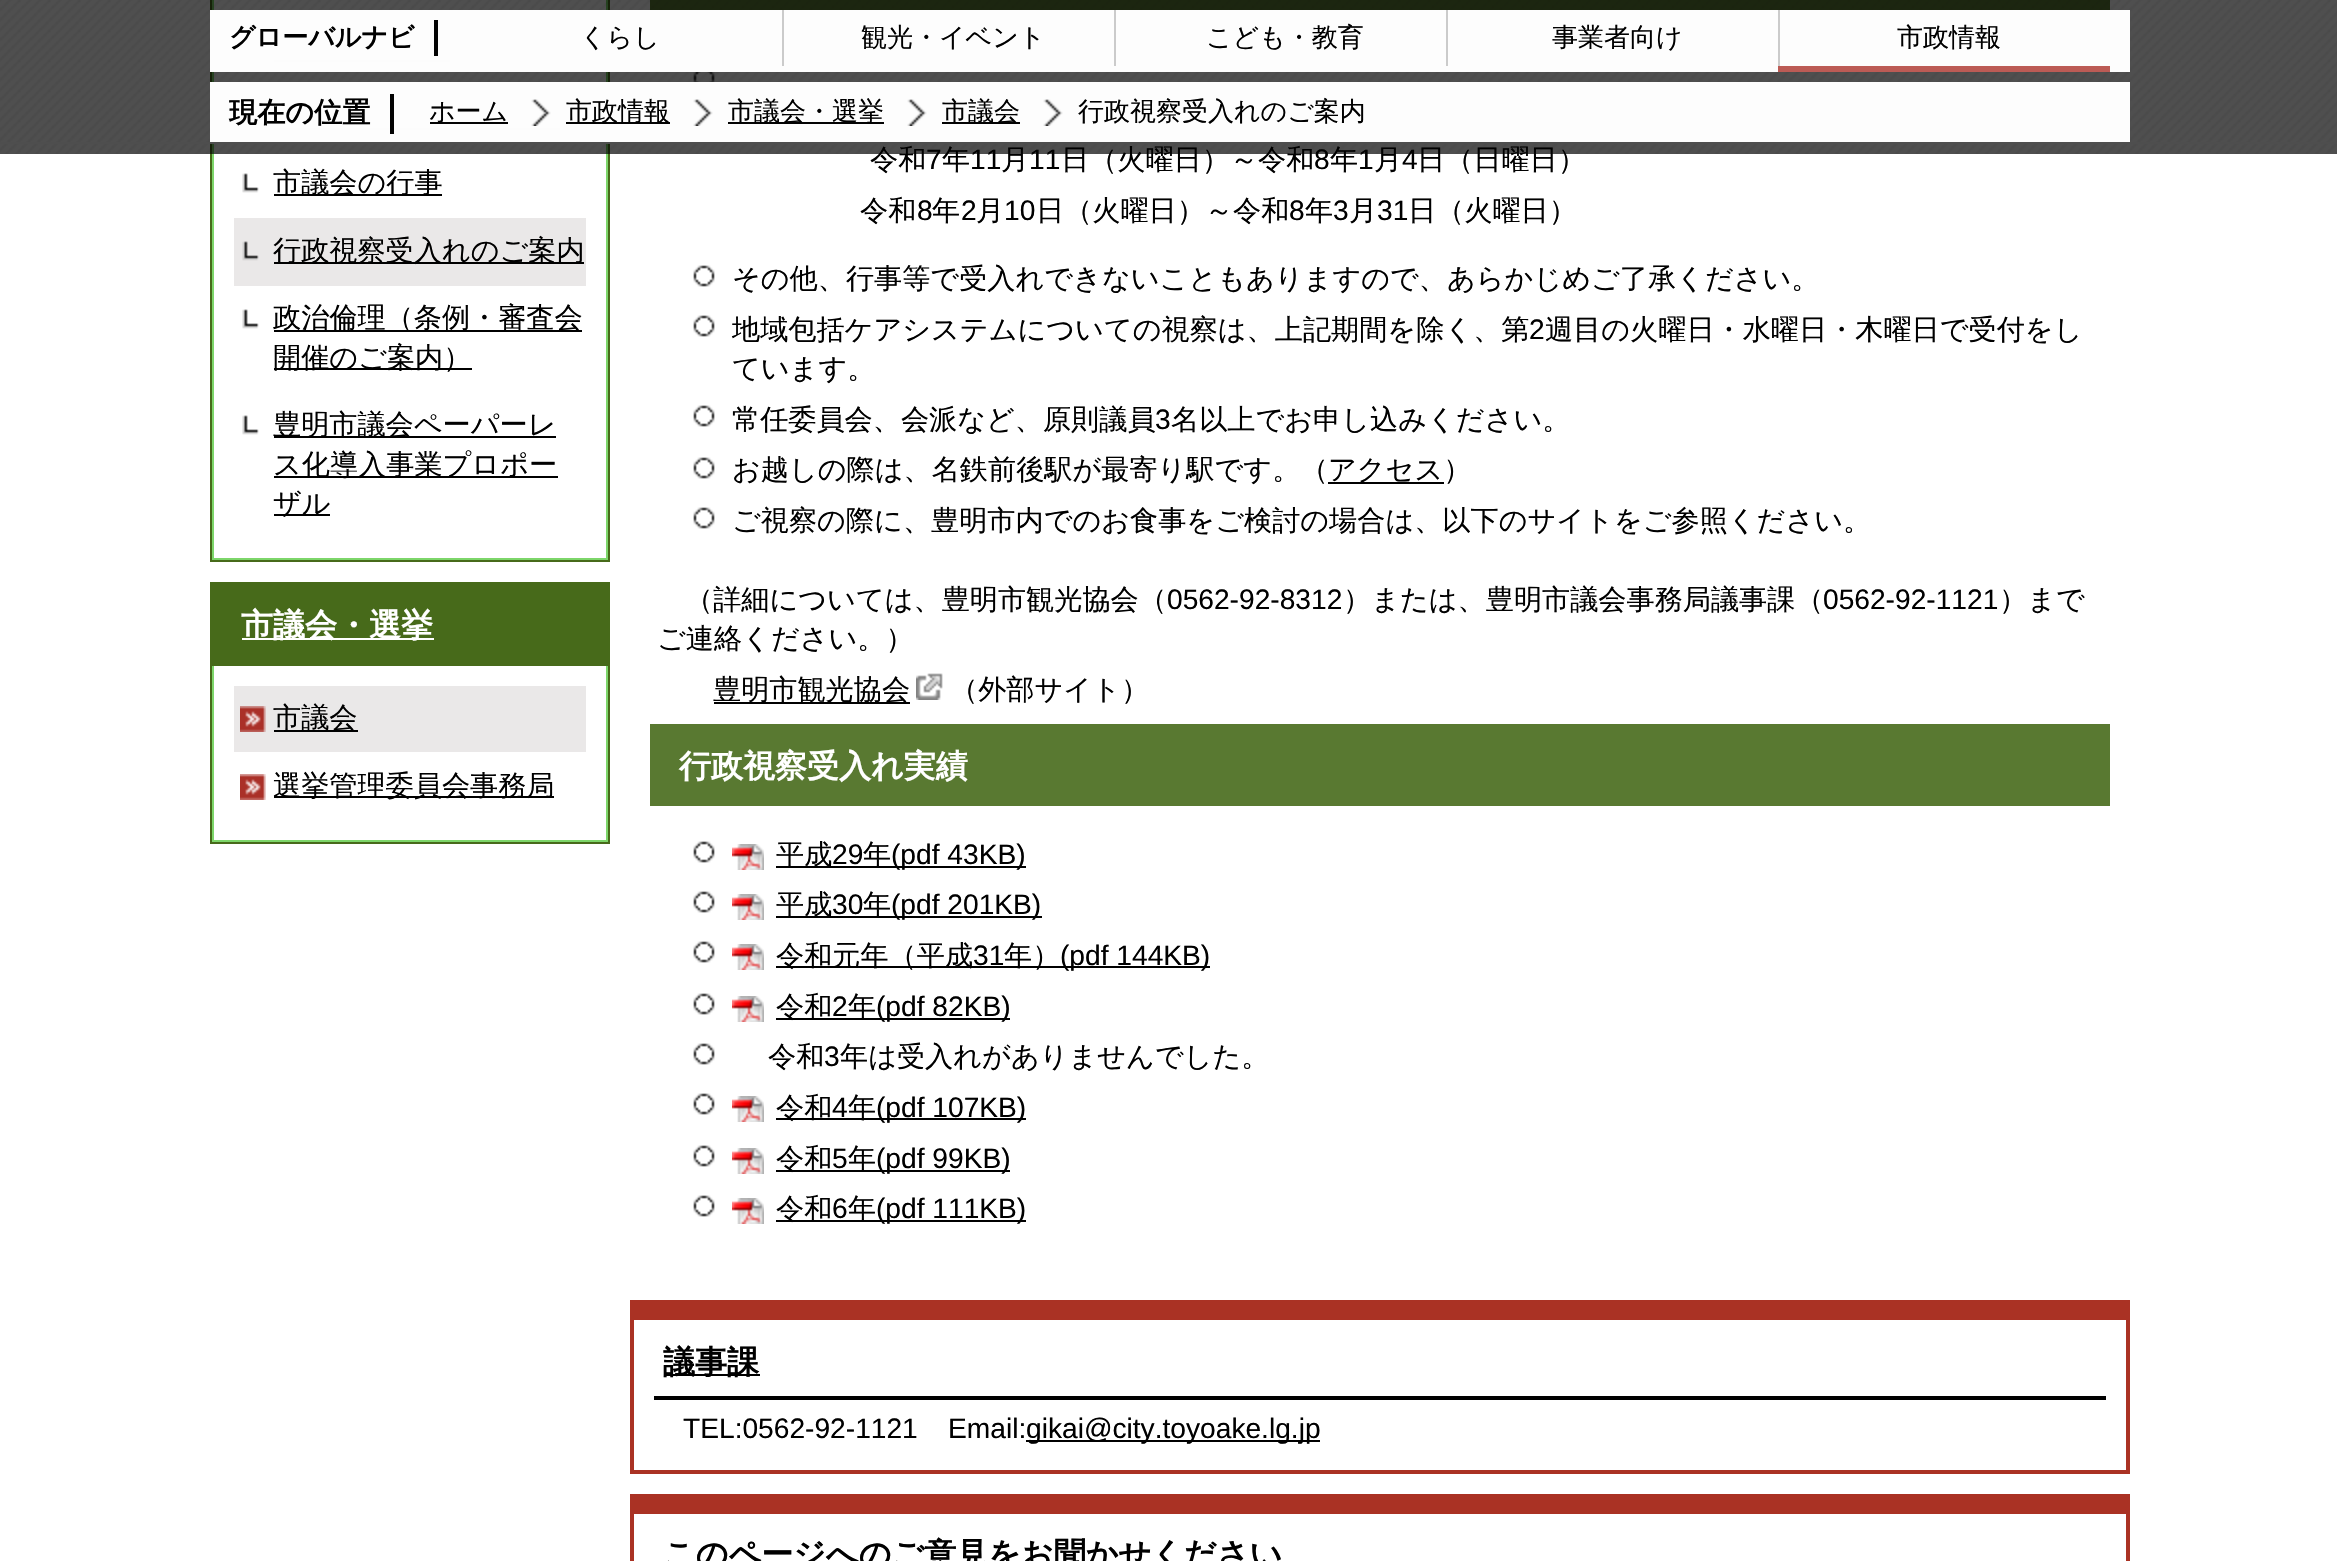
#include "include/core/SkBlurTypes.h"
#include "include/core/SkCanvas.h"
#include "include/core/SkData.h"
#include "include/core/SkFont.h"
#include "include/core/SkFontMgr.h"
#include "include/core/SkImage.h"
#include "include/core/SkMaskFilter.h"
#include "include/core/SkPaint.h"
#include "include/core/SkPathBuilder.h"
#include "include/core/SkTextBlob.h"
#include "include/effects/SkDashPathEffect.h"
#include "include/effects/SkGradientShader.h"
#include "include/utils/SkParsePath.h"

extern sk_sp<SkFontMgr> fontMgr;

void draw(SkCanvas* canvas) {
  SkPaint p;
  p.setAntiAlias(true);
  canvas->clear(SK_ColorWHITE);
  p.setStyle(SkPaint::kStroke_Style);
  p.setStrokeWidth(2);
  p.setColor(SkColorSetRGB(71, 106, 26));
  canvas->drawRect(SkRect::MakeLTRB(211, -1, 609, 561), p);
  p.setStyle(SkPaint::kFill_Style);
  p.setColor(SkColorSetRGB(125, 214, 106));
  canvas->drawRect(SkRect::MakeLTRB(606, 0, 608, 560), p);
  canvas->drawRect(SkRect::MakeLTRB(212, 558, 608, 560), p);
  canvas->drawRect(SkRect::MakeLTRB(212, 0, 214, 560), p);
  canvas->drawImageRect(SkImages::DeferredFromEncodedData(SkData::MakeFromFileName("images/4.png")), SkRect::MakeLTRB(242, 39, 259, 59), SkSamplingOptions());
  p.setColor(SK_ColorBLACK);
  canvas->drawRect(SkRect::MakeLTRB(274, 60, 450, 62), p);
  canvas->drawImageRect(SkImages::DeferredFromEncodedData(SkData::MakeFromFileName("images/4.png")), SkRect::MakeLTRB(242, 107, 259, 127), SkSamplingOptions());
  canvas->drawRect(SkRect::MakeLTRB(274, 128, 560, 130), p);
  canvas->drawImageRect(SkImages::DeferredFromEncodedData(SkData::MakeFromFileName("images/4.png")), SkRect::MakeLTRB(242, 173, 259, 193), SkSamplingOptions());
  canvas->drawRect(SkRect::MakeLTRB(274, 194, 442, 196), p);
  p.setColor(SkColorSetRGB(234, 232, 232));
  canvas->drawRect(SkRect::MakeLTRB(234, 218, 586, 286), p);
  canvas->drawImageRect(SkImages::DeferredFromEncodedData(SkData::MakeFromFileName("images/5.png")), SkRect::MakeLTRB(242, 241, 259, 261), SkSamplingOptions());
  p.setColor(SK_ColorBLACK);
  canvas->drawRect(SkRect::MakeLTRB(274, 262, 584, 264), p);
  canvas->drawImageRect(SkImages::DeferredFromEncodedData(SkData::MakeFromFileName("images/4.png")), SkRect::MakeLTRB(242, 309, 259, 329), SkSamplingOptions());
  canvas->drawRect(SkRect::MakeLTRB(274, 330, 582, 332), p);
  canvas->drawRect(SkRect::MakeLTRB(274, 368, 472, 370), p);
  canvas->drawImageRect(SkImages::DeferredFromEncodedData(SkData::MakeFromFileName("images/4.png")), SkRect::MakeLTRB(242, 415, 259, 435), SkSamplingOptions());
  canvas->drawRect(SkRect::MakeLTRB(274, 436, 556, 438), p);
  canvas->drawRect(SkRect::MakeLTRB(274, 476, 558, 478), p);
  canvas->drawRect(SkRect::MakeLTRB(274, 514, 330, 516), p);
  p.setStyle(SkPaint::kStroke_Style);
  p.setColor(SkColorSetRGB(71, 106, 26));
  canvas->drawRect(SkRect::MakeLTRB(211, 583, 609, 843), p);
  p.setStyle(SkPaint::kFill_Style);
  canvas->drawRect(SkRect::MakeLTRB(212, 584, 608, 666), p);
  p.setColor(SK_ColorWHITE);
  canvas->drawRect(SkRect::MakeLTRB(242, 638, 434, 640), p);
  p.setColor(SkColorSetRGB(125, 214, 106));
  canvas->drawRect(SkRect::MakeLTRB(606, 666, 608, 842), p);
  canvas->drawRect(SkRect::MakeLTRB(212, 840, 608, 842), p);
  canvas->drawRect(SkRect::MakeLTRB(212, 666, 214, 842), p);
  p.setColor(SkColorSetRGB(234, 232, 232));
  canvas->drawRect(SkRect::MakeLTRB(234, 686, 586, 752), p);
  canvas->drawImageRect(SkImages::DeferredFromEncodedData(SkData::MakeFromFileName("images/6.png")), SkRect::MakeLTRB(240, 706, 266, 732), SkSamplingOptions());
  p.setColor(SK_ColorBLACK);
  canvas->drawRect(SkRect::MakeLTRB(274, 730, 358, 732), p);
  canvas->drawImageRect(SkImages::DeferredFromEncodedData(SkData::MakeFromFileName("images/7.png")), SkRect::MakeLTRB(240, 774, 266, 800), SkSamplingOptions());
  canvas->drawRect(SkRect::MakeLTRB(274, 796, 554, 798), p);
  p.setColor(SkColorSetRGB(89, 121, 49));
  canvas->drawRect(SkRect::MakeLTRB(650, 0, 2110, 10), p);
  canvas->drawImageRect(SkImages::DeferredFromEncodedData(SkData::MakeFromFileName("images/8.png")), SkRect::MakeLTRB(693, 67, 715, 89), SkSamplingOptions());
  canvas->drawImageRect(SkImages::DeferredFromEncodedData(SkData::MakeFromFileName("images/8.png")), SkRect::MakeLTRB(693, 265, 715, 287), SkSamplingOptions());
  canvas->drawImageRect(SkImages::DeferredFromEncodedData(SkData::MakeFromFileName("images/8.png")), SkRect::MakeLTRB(693, 315, 715, 337), SkSamplingOptions());
  canvas->drawImageRect(SkImages::DeferredFromEncodedData(SkData::MakeFromFileName("images/8.png")), SkRect::MakeLTRB(693, 405, 715, 427), SkSamplingOptions());
  canvas->drawImageRect(SkImages::DeferredFromEncodedData(SkData::MakeFromFileName("images/8.png")), SkRect::MakeLTRB(693, 457, 715, 479), SkSamplingOptions());
  p.setColor(SK_ColorBLACK);
  canvas->drawRect(SkRect::MakeLTRB(1328, 482, 1444, 484), p);
  canvas->drawImageRect(SkImages::DeferredFromEncodedData(SkData::MakeFromFileName("images/8.png")), SkRect::MakeLTRB(693, 507, 715, 529), SkSamplingOptions());
  canvas->drawRect(SkRect::MakeLTRB(714, 702, 910, 704), p);
  canvas->drawImageRect(SkImages::DeferredFromEncodedData(SkData::MakeFromFileName("images/9.png")), SkRect::MakeLTRB(916, 673, 943, 700), SkSamplingOptions());
  p.setColor(SkColorSetRGB(89, 121, 49));
  canvas->drawRect(SkRect::MakeLTRB(650, 724, 2110, 806), p);
  canvas->drawImageRect(SkImages::DeferredFromEncodedData(SkData::MakeFromFileName("images/8.png")), SkRect::MakeLTRB(693, 841, 715, 863), SkSamplingOptions());
  canvas->drawImageRect(SkImages::DeferredFromEncodedData(SkData::MakeFromFileName("images/10.png")), SkRect::MakeLTRB(732, 844, 764, 870), SkSamplingOptions());
  p.setColor(SK_ColorBLACK);
  canvas->drawRect(SkRect::MakeLTRB(776, 866, 1026, 868), p);
  canvas->drawImageRect(SkImages::DeferredFromEncodedData(SkData::MakeFromFileName("images/8.png")), SkRect::MakeLTRB(693, 891, 715, 913), SkSamplingOptions());
  canvas->drawImageRect(SkImages::DeferredFromEncodedData(SkData::MakeFromFileName("images/10.png")), SkRect::MakeLTRB(732, 894, 764, 920), SkSamplingOptions());
  canvas->drawRect(SkRect::MakeLTRB(776, 916, 1042, 918), p);
  canvas->drawImageRect(SkImages::DeferredFromEncodedData(SkData::MakeFromFileName("images/8.png")), SkRect::MakeLTRB(693, 941, 715, 963), SkSamplingOptions());
  canvas->drawImageRect(SkImages::DeferredFromEncodedData(SkData::MakeFromFileName("images/10.png")), SkRect::MakeLTRB(732, 944, 764, 970), SkSamplingOptions());
  canvas->drawRect(SkRect::MakeLTRB(776, 966, 1210, 968), p);
  canvas->drawImageRect(SkImages::DeferredFromEncodedData(SkData::MakeFromFileName("images/8.png")), SkRect::MakeLTRB(693, 993, 715, 1015), SkSamplingOptions());
  canvas->drawImageRect(SkImages::DeferredFromEncodedData(SkData::MakeFromFileName("images/10.png")), SkRect::MakeLTRB(732, 996, 764, 1022), SkSamplingOptions());
  canvas->drawRect(SkRect::MakeLTRB(776, 1018, 1010, 1020), p);
  canvas->drawImageRect(SkImages::DeferredFromEncodedData(SkData::MakeFromFileName("images/8.png")), SkRect::MakeLTRB(693, 1043, 715, 1065), SkSamplingOptions());
  canvas->drawImageRect(SkImages::DeferredFromEncodedData(SkData::MakeFromFileName("images/8.png")), SkRect::MakeLTRB(693, 1093, 715, 1115), SkSamplingOptions());
  canvas->drawImageRect(SkImages::DeferredFromEncodedData(SkData::MakeFromFileName("images/10.png")), SkRect::MakeLTRB(732, 1096, 764, 1122), SkSamplingOptions());
  canvas->drawRect(SkRect::MakeLTRB(776, 1118, 1026, 1120), p);
  canvas->drawImageRect(SkImages::DeferredFromEncodedData(SkData::MakeFromFileName("images/8.png")), SkRect::MakeLTRB(693, 1145, 715, 1167), SkSamplingOptions());
  canvas->drawImageRect(SkImages::DeferredFromEncodedData(SkData::MakeFromFileName("images/10.png")), SkRect::MakeLTRB(732, 1148, 764, 1174), SkSamplingOptions());
  canvas->drawRect(SkRect::MakeLTRB(776, 1170, 1010, 1172), p);
  canvas->drawImageRect(SkImages::DeferredFromEncodedData(SkData::MakeFromFileName("images/8.png")), SkRect::MakeLTRB(693, 1195, 715, 1217), SkSamplingOptions());
  canvas->drawImageRect(SkImages::DeferredFromEncodedData(SkData::MakeFromFileName("images/10.png")), SkRect::MakeLTRB(732, 1198, 764, 1224), SkSamplingOptions());
  canvas->drawRect(SkRect::MakeLTRB(776, 1220, 1026, 1222), p);
  p.setColor(SkColorSetRGB(170, 50, 36));
  canvas->drawRect(SkRect::MakeLTRB(634, 1300, 2126, 1320), p);
  canvas->drawRect(SkRect::MakeLTRB(2126, 1300, 2130, 1474), p);
  canvas->drawRect(SkRect::MakeLTRB(630, 1470, 2130, 1474), p);
  canvas->drawRect(SkRect::MakeLTRB(630, 1300, 634, 1474), p);
  p.setColor(SK_ColorBLACK);
  canvas->drawRect(SkRect::MakeLTRB(654, 1396, 2106, 1400), p);
  canvas->drawRect(SkRect::MakeLTRB(664, 1374, 760, 1376), p);
  canvas->drawRect(SkRect::MakeLTRB(1026, 1440, 1320, 1442), p);
  p.setColor(SkColorSetRGB(170, 50, 36));
  canvas->drawRect(SkRect::MakeLTRB(634, 1494, 2126, 1514), p);
  canvas->drawRect(SkRect::MakeLTRB(2126, 1494, 2130, 1561), p);
  canvas->drawRect(SkRect::MakeLTRB(630, 1494, 634, 1561), p);
  SkFont font1(fontMgr->matchFamilyStyle("WenQuanYi Zen Hei", SkFontStyle(500, SkFontStyle::kNormal_Width, SkFontStyle::kUpright_Slant)), 28.15f);
  font1.setSubpixel(true);
  p.setColor(SK_ColorBLACK);
  canvas->drawString("市議会の行事", 273, 192, font1, p);
  canvas->drawString("行政視察受入れのご案内", 273, 260, font1, p);
  canvas->drawString("政治倫理（条例・審査会", 273, 327, font1, p);
  canvas->drawString("開催のご案内）", 273, 367, font1, p);
  canvas->drawString("豊明市議会ペーパーレ", 273, 434, font1, p);
  canvas->drawString("ス化導入事業プロポー", 273, 474, font1, p);
  canvas->drawString("ザル", 273, 513, font1, p);
  SkFont font2(fontMgr->matchFamilyStyle("WenQuanYi Zen Hei", SkFontStyle::Bold()), 32);
  font2.setSubpixel(true);
  p.setColor(SK_ColorWHITE);
  canvas->drawString("市議会・選挙", 241, 636, font2, p);
  p.setColor(SK_ColorBLACK);
  canvas->drawString("市議会", 273, 727, font1, p);
  canvas->drawString("選挙管理委員会事務局", 273, 795, font1, p);
  canvas->drawString("令和", 870, 169, font1, p);
  SkFont font3(fontMgr->matchFamilyStyle("Liberation Sans", SkFontStyle::Normal()), 28.15f);
  font3.setSubpixel(true);
  canvas->drawString("7", 926, 169, font3, p);
  canvas->drawString("年", 942, 169, font1, p);
  canvas->drawString("11", 970, 169, font3, p);
  canvas->drawString("月", 1001, 169, font1, p);
  canvas->drawString("11", 1029, 169, font3, p);
  canvas->drawString("日（火曜日）～令和", 1061, 169, font1, p);
  canvas->drawString("8", 1314, 169, font3, p);
  canvas->drawString("年", 1330, 169, font1, p);
  canvas->drawString("1", 1358, 169, font3, p);
  canvas->drawString("月", 1374, 169, font1, p);
  canvas->drawString("4", 1402, 169, font3, p);
  canvas->drawString("日（日曜日）", 1417, 169, font1, p);
  p.setColor(SkColorSetARGB(176, 0, 0, 0));
  canvas->drawRect(SkRect::MakeLTRB(0, 0, 2337, 154), p);
  canvas->drawImageRect(SkImages::DeferredFromEncodedData(SkData::MakeFromFileName("images/1.png")), SkRect::MakeLTRB(0, 0, 2337, 154), SkSamplingOptions());
  p.setColor(SkColorSetARGB(252, 255, 255, 255));
  canvas->drawRect(SkRect::MakeLTRB(210, 82, 2130, 142), p);
  SkFont font4(fontMgr->matchFamilyStyle("WenQuanYi Zen Hei", SkFontStyle::Bold()), 28.15f);
  font4.setSubpixel(true);
  p.setColor(SK_ColorBLACK);
  canvas->drawString("現在の位置", 229, 122, font4, p);
  p.setColor(SkColorSetRGB(3, 3, 3));
  canvas->drawRect(SkRect::MakeLTRB(390, 94, 394, 134), p);
  p.setColor(SkColorSetARGB(252, 255, 255, 255));
  canvas->drawRect(SkRect::MakeLTRB(210, 10, 2130, 72), p);
  SkFont font5(fontMgr->matchFamilyStyle("WenQuanYi Zen Hei", SkFontStyle::Bold()), 26);
  font5.setSubpixel(true);
  p.setColor(SK_ColorBLACK);
  canvas->drawString("グローバルナビ", 229, 46, font5, p);
  p.setColor(SkColorSetRGB(3, 3, 3));
  canvas->drawRect(SkRect::MakeLTRB(434, 20, 438, 56), p);
  SkFont font6(fontMgr->matchFamilyStyle("WenQuanYi Zen Hei", SkFontStyle(500, SkFontStyle::kNormal_Width, SkFontStyle::kUpright_Slant)), 26);
  font6.setSubpixel(true);
  p.setColor(SK_ColorBLACK);
  canvas->drawString("行政視察受入れのご案内", 1078, 120, font6, p);
  p.setColor(SkColorSetRGB(3, 3, 3));
  canvas->drawRect(SkRect::MakeLTRB(942, 122, 1020, 124), p);
  p.setColor(SK_ColorBLACK);
  canvas->drawString("市議会", 942, 120, font6, p);
  canvas->drawImageRect(SkImages::DeferredFromEncodedData(SkData::MakeFromFileName("images/3.png")), SkRect::MakeLTRB(1043, 99, 1063, 126), SkSamplingOptions());
  p.setColor(SkColorSetRGB(3, 3, 3));
  canvas->drawRect(SkRect::MakeLTRB(728, 122, 884, 124), p);
  p.setColor(SK_ColorBLACK);
  canvas->drawString("市議会・選挙", 728, 120, font6, p);
  canvas->drawImageRect(SkImages::DeferredFromEncodedData(SkData::MakeFromFileName("images/3.png")), SkRect::MakeLTRB(907, 99, 927, 126), SkSamplingOptions());
  p.setColor(SkColorSetRGB(3, 3, 3));
  canvas->drawRect(SkRect::MakeLTRB(566, 122, 670, 124), p);
  p.setColor(SK_ColorBLACK);
  canvas->drawString("市政情報", 566, 120, font6, p);
  canvas->drawImageRect(SkImages::DeferredFromEncodedData(SkData::MakeFromFileName("images/3.png")), SkRect::MakeLTRB(693, 99, 713, 126), SkSamplingOptions());
  p.setColor(SkColorSetRGB(3, 3, 3));
  canvas->drawRect(SkRect::MakeLTRB(430, 122, 508, 124), p);
  p.setColor(SK_ColorBLACK);
  canvas->drawString("ホーム", 429, 120, font6, p);
  canvas->drawImageRect(SkImages::DeferredFromEncodedData(SkData::MakeFromFileName("images/2.png")), SkRect::MakeLTRB(531, 99, 551, 126), SkSamplingOptions());
  p.setColor(SkColorSetARGB(252, 78, 78, 78));
  canvas->drawRect(SkRect::MakeLTRB(0, 142, 2337, 144), p);
  p.setColor(SK_ColorBLACK);
  canvas->drawString("市政情報", 1897, 46, font6, p);
  p.setColor(SkColorSetRGB(203, 203, 203));
  canvas->drawRect(SkRect::MakeLTRB(1778, 10, 1780, 66), p);
  p.setColor(SkColorSetRGB(188, 91, 85));
  canvas->drawRect(SkRect::MakeLTRB(1778, 66, 2110, 72), p);
  p.setColor(SK_ColorBLACK);
  canvas->drawString("事業者向け", 1552, 46, font6, p);
  p.setColor(SkColorSetRGB(203, 203, 203));
  canvas->drawRect(SkRect::MakeLTRB(1446, 10, 1448, 66), p);
  p.setColor(SK_ColorBLACK);
  canvas->drawString("こども・教育", 1206, 46, font6, p);
  p.setColor(SkColorSetRGB(203, 203, 203));
  canvas->drawRect(SkRect::MakeLTRB(1114, 10, 1116, 66), p);
  p.setColor(SK_ColorBLACK);
  canvas->drawString("観光・イベント", 861, 46, font6, p);
  p.setColor(SkColorSetRGB(203, 203, 203));
  canvas->drawRect(SkRect::MakeLTRB(782, 10, 784, 66), p);
  p.setColor(SK_ColorBLACK);
  canvas->drawString("くらし", 580, 46, font6, p);
  canvas->drawString("令和", 860, 220, font1, p);
  canvas->drawString("8", 917, 220, font3, p);
  canvas->drawString("年", 932, 220, font1, p);
  canvas->drawString("2", 961, 220, font3, p);
  canvas->drawString("月", 976, 220, font1, p);
  canvas->drawString("10", 1004, 220, font3, p);
  canvas->drawString("日（火曜日）～令和", 1036, 220, font1, p);
  canvas->drawString("8", 1289, 220, font3, p);
  canvas->drawString("年", 1305, 220, font1, p);
  canvas->drawString("3", 1333, 220, font3, p);
  canvas->drawString("月", 1349, 220, font1, p);
  canvas->drawString("31", 1377, 220, font3, p);
  canvas->drawString("日（火曜日）", 1408, 220, font1, p);
  canvas->drawString("その他、行事等で受入れできないこともありますので、あらかじめご了承ください。", 732, 288, font1, p);
  canvas->drawString("地域包括ケアシステムについての視察は、上記期間を除く、第", 732, 339, font1, p);
  canvas->drawString("2", 1529, 339, font3, p);
  canvas->drawString("週目の火曜日・水曜日・木曜日で受付をし", 1545, 339, font1, p);
  canvas->drawString("ています。", 732, 378, font1, p);
  canvas->drawString("常任委員会、会派など、原則議員", 732, 429, font1, p);
  canvas->drawString("3", 1155, 429, font3, p);
  canvas->drawString("名以上でお申し込みください。", 1171, 429, font1, p);
  canvas->drawString("お越しの際は、名鉄前後駅が最寄り駅です。（", 732, 479, font1, p);
  canvas->drawString("アクセス）", 1328, 479, font1, p);
  canvas->drawString("ご視察の際に、豊明市内でのお食事をご検討の場合は、以下のサイトをご参照ください。", 732, 530, font1, p);
  canvas->drawString("（詳細については、豊明市観光協会（", 685, 609, font1, p);
  canvas->drawString("0562-92-8312", 1167, 609, font3, p);
  canvas->drawString("）または、豊明市議会事務局議事課（", 1343, 609, font1, p);
  canvas->drawString("0562-92-1121", 1823, 609, font3, p);
  canvas->drawString("）まで", 1999, 609, font1, p);
  canvas->drawString("ご連絡ください。）", 657, 648, font1, p);
  canvas->drawString("豊明市観光協会", 713, 699, font1, p);
  canvas->drawString("（外部サイト）", 950, 699, font1, p);
  p.setColor(SK_ColorWHITE);
  canvas->drawString("行政視察受入れ実績", 679, 777, font2, p);
  p.setColor(SK_ColorBLACK);
  canvas->drawString("平成", 776, 864, font1, p);
  canvas->drawString("29", 832, 864, font3, p);
  canvas->drawString("年", 863, 864, font1, p);
  canvas->drawString("(pdf 43KB)", 891, 864, font3, p);
  canvas->drawString("平成", 776, 914, font1, p);
  canvas->drawString("30", 832, 914, font3, p);
  canvas->drawString("年", 863, 914, font1, p);
  canvas->drawString("(pdf 201KB)", 891, 914, font3, p);
  canvas->drawString("令和元年（平成", 776, 965, font1, p);
  canvas->drawString("31", 973, 965, font3, p);
  canvas->drawString("年）", 1004, 965, font1, p);
  canvas->drawString("(pdf 144KB)", 1060, 965, font3, p);
  canvas->drawString("令和", 776, 1016, font1, p);
  canvas->drawString("2", 832, 1016, font3, p);
  canvas->drawString("年", 848, 1016, font1, p);
  canvas->drawString("(pdf 82KB)", 876, 1016, font3, p);
  canvas->drawString("令和", 768, 1066, font1, p);
  canvas->drawString("3", 824, 1066, font3, p);
  canvas->drawString("年は受入れがありませんでした。", 840, 1066, font1, p);
  canvas->drawString("令和", 776, 1117, font1, p);
  canvas->drawString("4", 832, 1117, font3, p);
  canvas->drawString("年", 848, 1117, font1, p);
  canvas->drawString("(pdf 107KB)", 876, 1117, font3, p);
  canvas->drawString("令和", 776, 1168, font1, p);
  canvas->drawString("5", 832, 1168, font3, p);
  canvas->drawString("年", 848, 1168, font1, p);
  canvas->drawString("(pdf 99KB)", 876, 1168, font3, p);
  canvas->drawString("令和", 776, 1218, font1, p);
  canvas->drawString("6", 832, 1218, font3, p);
  canvas->drawString("年", 848, 1218, font1, p);
  canvas->drawString("(pdf 111KB)", 876, 1218, font3, p);
  canvas->drawString("議事課", 663, 1373, font2, p);
  canvas->drawString("TEL:0562-92-1121", 683, 1438, font3, p);
  canvas->drawString("Email:", 948, 1438, font3, p);
  canvas->drawString("gikai@city.toyoake.lg.jp", 1026, 1438, font3, p);
  canvas->drawString("このページへのご意見をお聞かせください", 663, 1565, font2, p);
}
